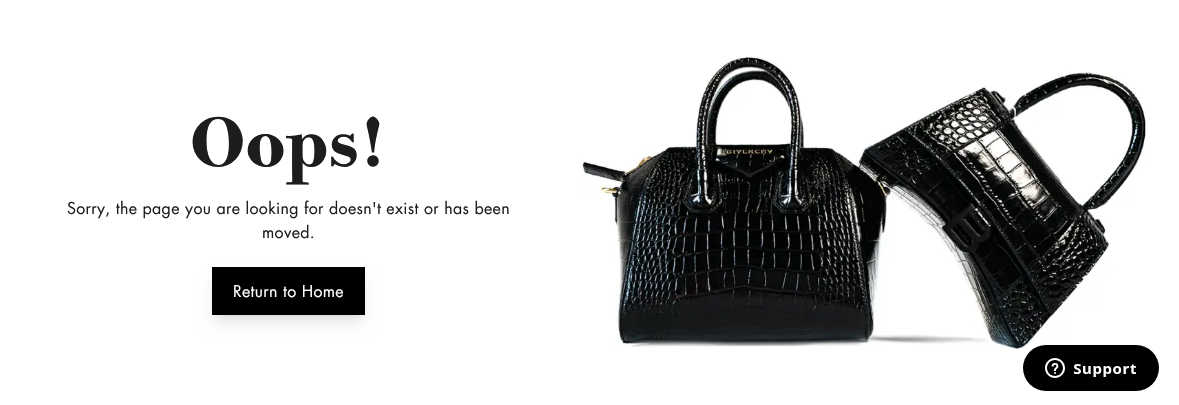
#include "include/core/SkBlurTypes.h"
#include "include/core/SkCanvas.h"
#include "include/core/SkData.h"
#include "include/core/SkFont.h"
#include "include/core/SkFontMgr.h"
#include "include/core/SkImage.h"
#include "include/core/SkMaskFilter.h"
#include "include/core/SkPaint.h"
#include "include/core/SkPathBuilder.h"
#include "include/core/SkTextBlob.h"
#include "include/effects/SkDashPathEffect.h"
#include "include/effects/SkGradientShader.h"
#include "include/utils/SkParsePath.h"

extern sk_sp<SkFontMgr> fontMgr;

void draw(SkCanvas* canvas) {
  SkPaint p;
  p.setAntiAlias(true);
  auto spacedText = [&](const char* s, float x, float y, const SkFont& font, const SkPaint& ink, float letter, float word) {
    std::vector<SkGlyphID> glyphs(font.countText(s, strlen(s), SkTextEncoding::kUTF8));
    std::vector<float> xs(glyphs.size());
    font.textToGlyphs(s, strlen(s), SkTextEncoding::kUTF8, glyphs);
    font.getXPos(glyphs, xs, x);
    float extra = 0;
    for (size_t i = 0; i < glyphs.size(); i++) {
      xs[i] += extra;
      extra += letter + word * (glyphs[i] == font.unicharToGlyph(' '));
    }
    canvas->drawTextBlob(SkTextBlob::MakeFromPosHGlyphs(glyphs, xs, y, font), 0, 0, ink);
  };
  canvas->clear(SK_ColorWHITE);
  p.setColor(SkColorSetARGB(26, 0, 0, 0));
  p.setMaskFilter(SkMaskFilter::MakeBlur(kNormal_SkBlurStyle, 3));
  canvas->drawRect(SkRect::MakeLTRB(216, 275, 361, 315), p);
  p.setMaskFilter(nullptr);
  p.setMaskFilter(SkMaskFilter::MakeBlur(kNormal_SkBlurStyle, 7.5f));
  canvas->drawRect(SkRect::MakeLTRB(215, 280, 362, 322), p);
  p.setMaskFilter(nullptr);
  p.setColor(SK_ColorBLACK);
  canvas->drawRect(SkRect::MakeLTRB(212, 267, 365, 315), p);
  canvas->drawImageRect(SkImages::DeferredFromEncodedData(SkData::MakeFromFileName("images/1.png")), SkRect::MakeLTRB(581, 56, 1146, 350), SkSamplingOptions());
  canvas->drawImageRect(SkImages::DeferredFromEncodedData(SkData::MakeFromFileName("images/2.png")), SkRect::MakeLTRB(1023, 345, 1159, 391), SkSamplingOptions());
  SkFont font1(fontMgr->matchFamilyStyle("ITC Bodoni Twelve", SkFontStyle::Bold()), 70);
  font1.setSubpixel(true);
  p.setColor(SkColorSetRGB(28, 29, 29));
  spacedText("Oops!", 190, 166, font1, p, 0.32f, 0);
  SkFont font2(fontMgr->matchFamilyStyle("Futura", SkFontStyle::Normal()), 16);
  font2.setSubpixel(true);
  spacedText("Sorry, the page you are looking for doesn't exist or has been", 67, 214, font2, p, 0.32f, 0);
  spacedText("moved.", 262, 238, font2, p, 0.32f, 0);
  p.setColor(SK_ColorWHITE);
  spacedText("Return to Home", 233, 297, font2, p, 0.32f, 0);
}
